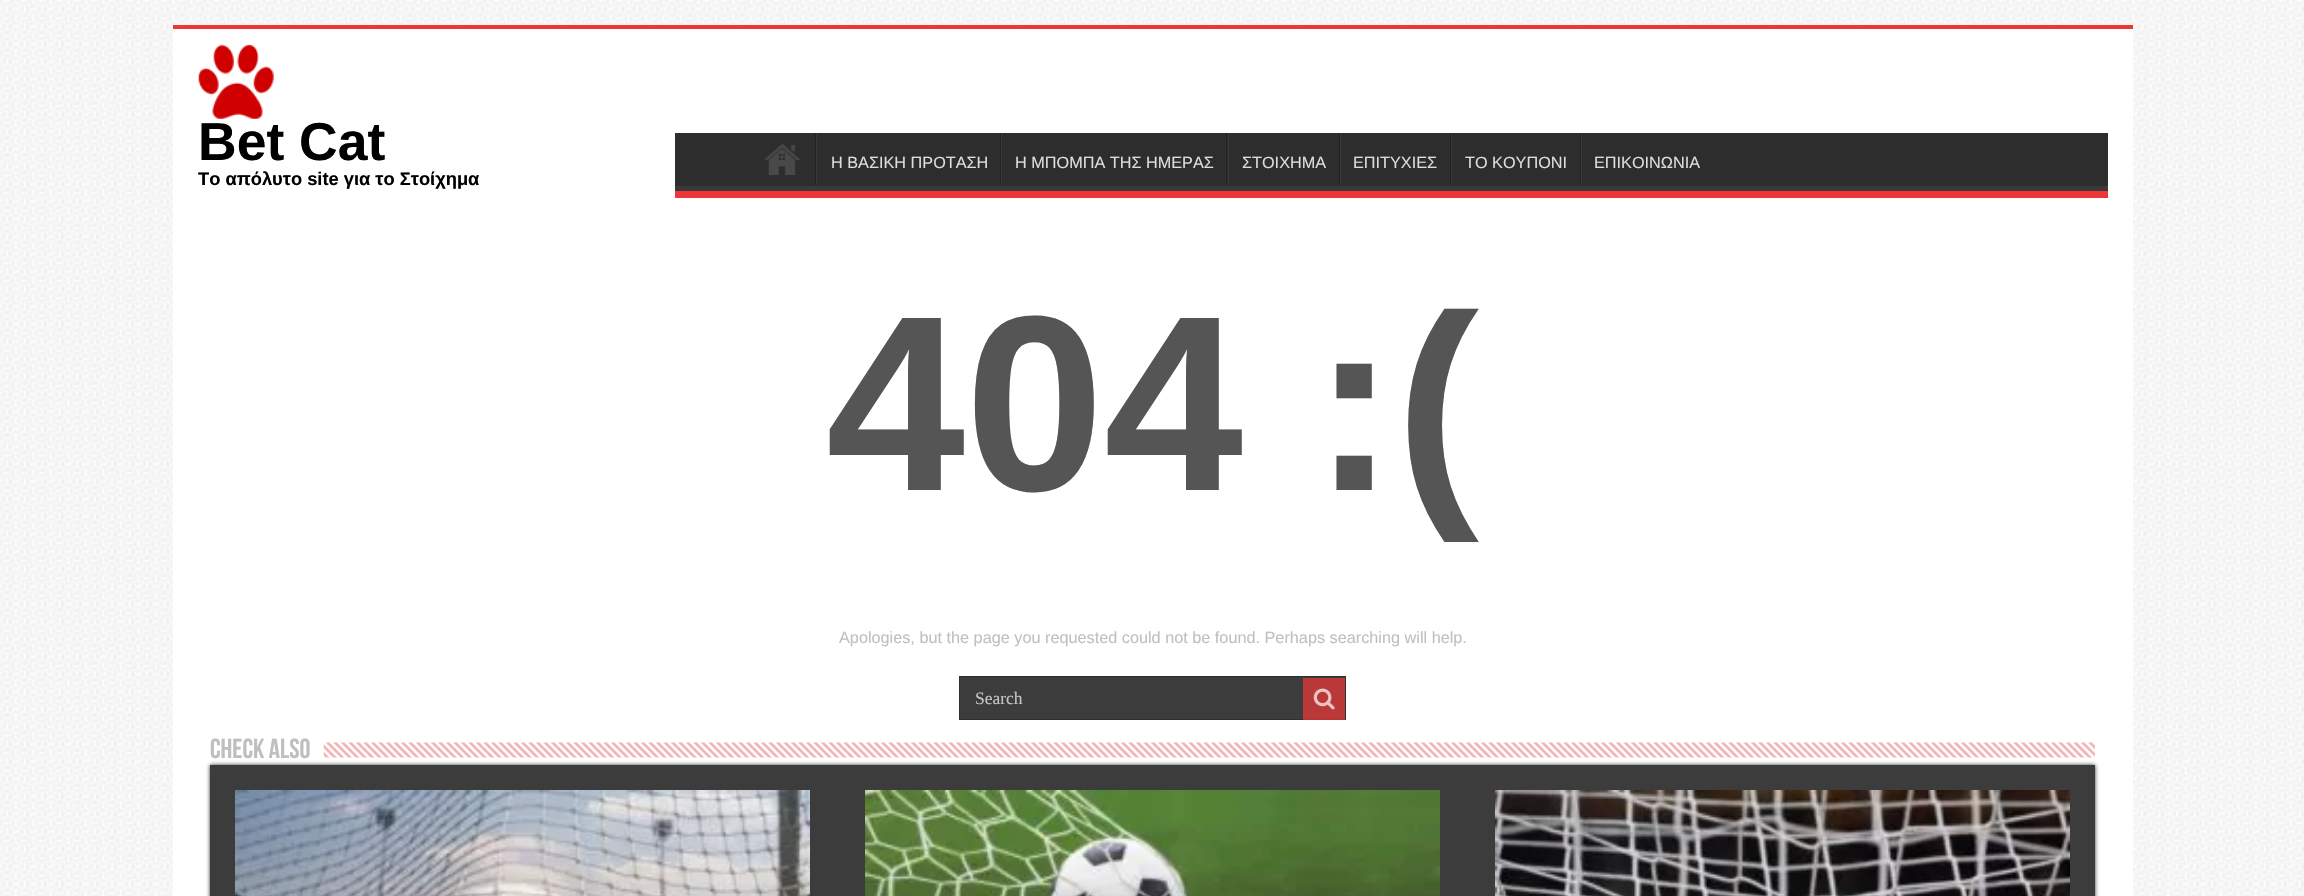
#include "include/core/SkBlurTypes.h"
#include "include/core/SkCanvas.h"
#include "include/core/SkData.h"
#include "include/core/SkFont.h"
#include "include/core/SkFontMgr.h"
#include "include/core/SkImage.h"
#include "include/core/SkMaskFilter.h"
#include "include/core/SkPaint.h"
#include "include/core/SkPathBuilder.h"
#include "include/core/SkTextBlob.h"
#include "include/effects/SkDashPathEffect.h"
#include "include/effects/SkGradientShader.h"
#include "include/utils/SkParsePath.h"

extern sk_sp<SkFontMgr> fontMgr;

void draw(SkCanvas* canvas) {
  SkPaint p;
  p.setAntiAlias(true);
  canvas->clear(SK_ColorWHITE);
  canvas->drawImageRect(SkImages::DeferredFromEncodedData(SkData::MakeFromFileName("images/1.png")), SkRect::MakeLTRB(0, 0, 2304, 896), SkSamplingOptions());
  p.setColor(SK_ColorWHITE);
  canvas->drawRect(SkRect::MakeLTRB(173, 29, 2133, 896), p);
  p.setColor(SkColorSetRGB(239, 54, 54));
  canvas->drawRect(SkRect::MakeLTRB(173, 25, 2133, 29), p);
  canvas->drawImageRect(SkImages::DeferredFromEncodedData(SkData::MakeFromFileName("images/2.png")), SkRect::MakeLTRB(198, 44, 274, 119), SkSamplingOptions());
  p.setColor(SkColorSetRGB(45, 45, 45));
  canvas->drawRect(SkRect::MakeLTRB(675, 133, 2108, 186), p);
  canvas->save();
  canvas->clipRect(SkRect::MakeLTRB(675, 133, 2108, 191));
  p.setColor(SkColorSetRGB(57, 57, 57));
  canvas->drawPath(SkPathBuilder(SkPathFillType::kEvenOdd).moveTo(551, 9).lineTo(2231, 9).lineTo(2231, 315).lineTo(551, 315).close().moveTo(674, 125).lineTo(2106, 125).cubicTo(2107, 125, 2108, 126, 2108, 126).lineTo(2108, 185).cubicTo(2108, 186, 2107, 186, 2106, 186).lineTo(674, 186).cubicTo(673, 186, 672, 186, 672, 185).lineTo(672, 126).cubicTo(672, 126, 673, 125, 674, 125).close().detach(), p);
  canvas->restore();
  p.setColor(SkColorSetRGB(239, 54, 54));
  canvas->drawRect(SkRect::MakeLTRB(675, 191, 2108, 198), p);
  canvas->drawImageRect(SkImages::DeferredFromEncodedData(SkData::MakeFromFileName("images/3.png")), SkRect::MakeLTRB(764, 143, 800, 175), SkSamplingOptions());
  p.setColor(SkColorSetRGB(34, 34, 34));
  canvas->drawRect(SkRect::MakeLTRB(815, 133, 816, 185), p);
  p.setColor(SkColorSetRGB(56, 56, 56));
  canvas->drawRect(SkRect::MakeLTRB(816, 133, 817, 185), p);
  p.setColor(SkColorSetRGB(34, 34, 34));
  canvas->drawRect(SkRect::MakeLTRB(1000, 133, 1001, 185), p);
  p.setColor(SkColorSetRGB(56, 56, 56));
  canvas->drawRect(SkRect::MakeLTRB(1001, 133, 1002, 185), p);
  p.setColor(SkColorSetRGB(34, 34, 34));
  canvas->drawRect(SkRect::MakeLTRB(1226, 133, 1227, 185), p);
  p.setColor(SkColorSetRGB(56, 56, 56));
  canvas->drawRect(SkRect::MakeLTRB(1228, 133, 1229, 185), p);
  p.setColor(SkColorSetRGB(34, 34, 34));
  canvas->drawRect(SkRect::MakeLTRB(1339, 133, 1340, 185), p);
  p.setColor(SkColorSetRGB(56, 56, 56));
  canvas->drawRect(SkRect::MakeLTRB(1340, 133, 1341, 185), p);
  p.setColor(SkColorSetRGB(34, 34, 34));
  canvas->drawRect(SkRect::MakeLTRB(1450, 133, 1451, 185), p);
  p.setColor(SkColorSetRGB(56, 56, 56));
  canvas->drawRect(SkRect::MakeLTRB(1451, 133, 1452, 185), p);
  p.setColor(SkColorSetRGB(34, 34, 34));
  canvas->drawRect(SkRect::MakeLTRB(1580, 133, 1581, 185), p);
  p.setColor(SkColorSetRGB(56, 56, 56));
  canvas->drawRect(SkRect::MakeLTRB(1581, 133, 1582, 185), p);
  p.setColor(SkColorSetRGB(60, 60, 60));
  canvas->drawRect(SkRect::MakeLTRB(959.5f, 676.5f, 1345.5f, 719.5f), p);
  p.setStyle(SkPaint::kStroke_Style);
  p.setStrokeWidth(1);
  p.setColor(SkColorSetRGB(47, 47, 47));
  canvas->drawRect(SkRect::MakeLTRB(959.5f, 676.5f, 1345.5f, 719.5f), p);
  p.setStyle(SkPaint::kFill_Style);
  p.setColor(SkColorSetARGB(179, 239, 54, 54));
  canvas->drawRect(SkRect::MakeLTRB(1303, 678, 1345, 720), p);
  canvas->drawImageRect(SkImages::DeferredFromEncodedData(SkData::MakeFromFileName("images/4.png")), SkRect::MakeLTRB(1313, 688, 1335, 710), SkSamplingOptions());
  canvas->drawImageRect(SkImages::DeferredFromEncodedData(SkData::MakeFromFileName("images/5.png")), SkRect::MakeLTRB(323, 742, 2095, 758), SkSamplingOptions());
  p.setColor(SkColorSetRGB(42, 42, 42));
  p.setMaskFilter(SkMaskFilter::MakeBlur(kNormal_SkBlurStyle, 2));
  canvas->drawRect(SkRect::MakeLTRB(210, 765, 2095, 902), p);
  p.setMaskFilter(nullptr);
  p.setColor(SkColorSetRGB(60, 60, 60));
  canvas->drawRect(SkRect::MakeLTRB(210, 765, 2095, 896), p);
  canvas->drawImageRect(SkImages::DeferredFromEncodedData(SkData::MakeFromFileName("images/6.png")), SkRect::MakeLTRB(235, 790, 810, 896), SkSamplingOptions());
  canvas->drawImageRect(SkImages::DeferredFromEncodedData(SkData::MakeFromFileName("images/7.png")), SkRect::MakeLTRB(865, 790, 1440, 896), SkSamplingOptions());
  canvas->drawImageRect(SkImages::DeferredFromEncodedData(SkData::MakeFromFileName("images/8.png")), SkRect::MakeLTRB(1495, 790, 2070, 896), SkSamplingOptions());
  SkFont font1(fontMgr->matchFamilyStyle("Liberation Sans", SkFontStyle::Bold()), 53.5f);
  font1.setSubpixel(true);
  p.setColor(SK_ColorBLACK);
  canvas->drawString("Bet Cat", 198, 160, font1, p);
  SkFont font2(fontMgr->matchFamilyStyle("Liberation Sans", SkFontStyle::Bold()), 18.3f);
  font2.setSubpixel(true);
  canvas->drawString("Το απόλυτο site για το Στοίχημα", 198, 185, font2, p);
  SkFont font3(fontMgr->matchFamilyStyle("Liberation Sans", SkFontStyle::Normal()), 16.25f);
  font3.setSubpixel(true);
  p.setColor(SkColorSetRGB(221, 221, 221));
  canvas->drawString("Η ΒΑΣΙΚΗ ΠΡΟΤΑΣΗ", 831, 168, font3, p);
  canvas->drawString("Η ΜΠΟΜΠΑ ΤΗΣ ΗΜΕΡΑΣ", 1015, 168, font3, p);
  canvas->drawString("ΣΤΟΙΧΗΜΑ", 1242, 168, font3, p);
  canvas->drawString("ΕΠΙΤΥΧΙΕΣ", 1353, 168, font3, p);
  canvas->drawString("ΤΟ ΚΟΥΠΟΝΙ", 1465, 168, font3, p);
  canvas->drawString("ΕΠΙΚΟΙΝΩΝΙΑ", 1594, 168, font3, p);
  SkFont font4(fontMgr->matchFamilyStyle("Liberation Sans", SkFontStyle::Bold()), 250);
  font4.setSubpixel(true);
  p.setColor(SkColorSetRGB(85, 85, 85));
  canvas->drawString("404 :(", 826, 490, font4, p);
  p.setColor(SkColorSetRGB(191, 191, 191));
  canvas->drawString("Apologies, but the page you requested could not be found. Perhaps searching will help.", 839, 643, font3, p);
  SkFont font5(fontMgr->matchFamilyStyle("Liberation Serif", SkFontStyle::Normal()), 17.5f);
  font5.setSubpixel(true);
  p.setColor(SkColorSetRGB(197, 197, 197));
  canvas->drawString("Search", 975, 704, font5, p);
  SkFont font6(fontMgr->matchFamilyStyle("Bebas Neue", SkFontStyle::Bold()), 27.5f);
  font6.setSubpixel(true);
  p.setColor(SkColorSetRGB(191, 191, 191));
  canvas->drawString("Check Also", 210, 758, font6, p);
}
